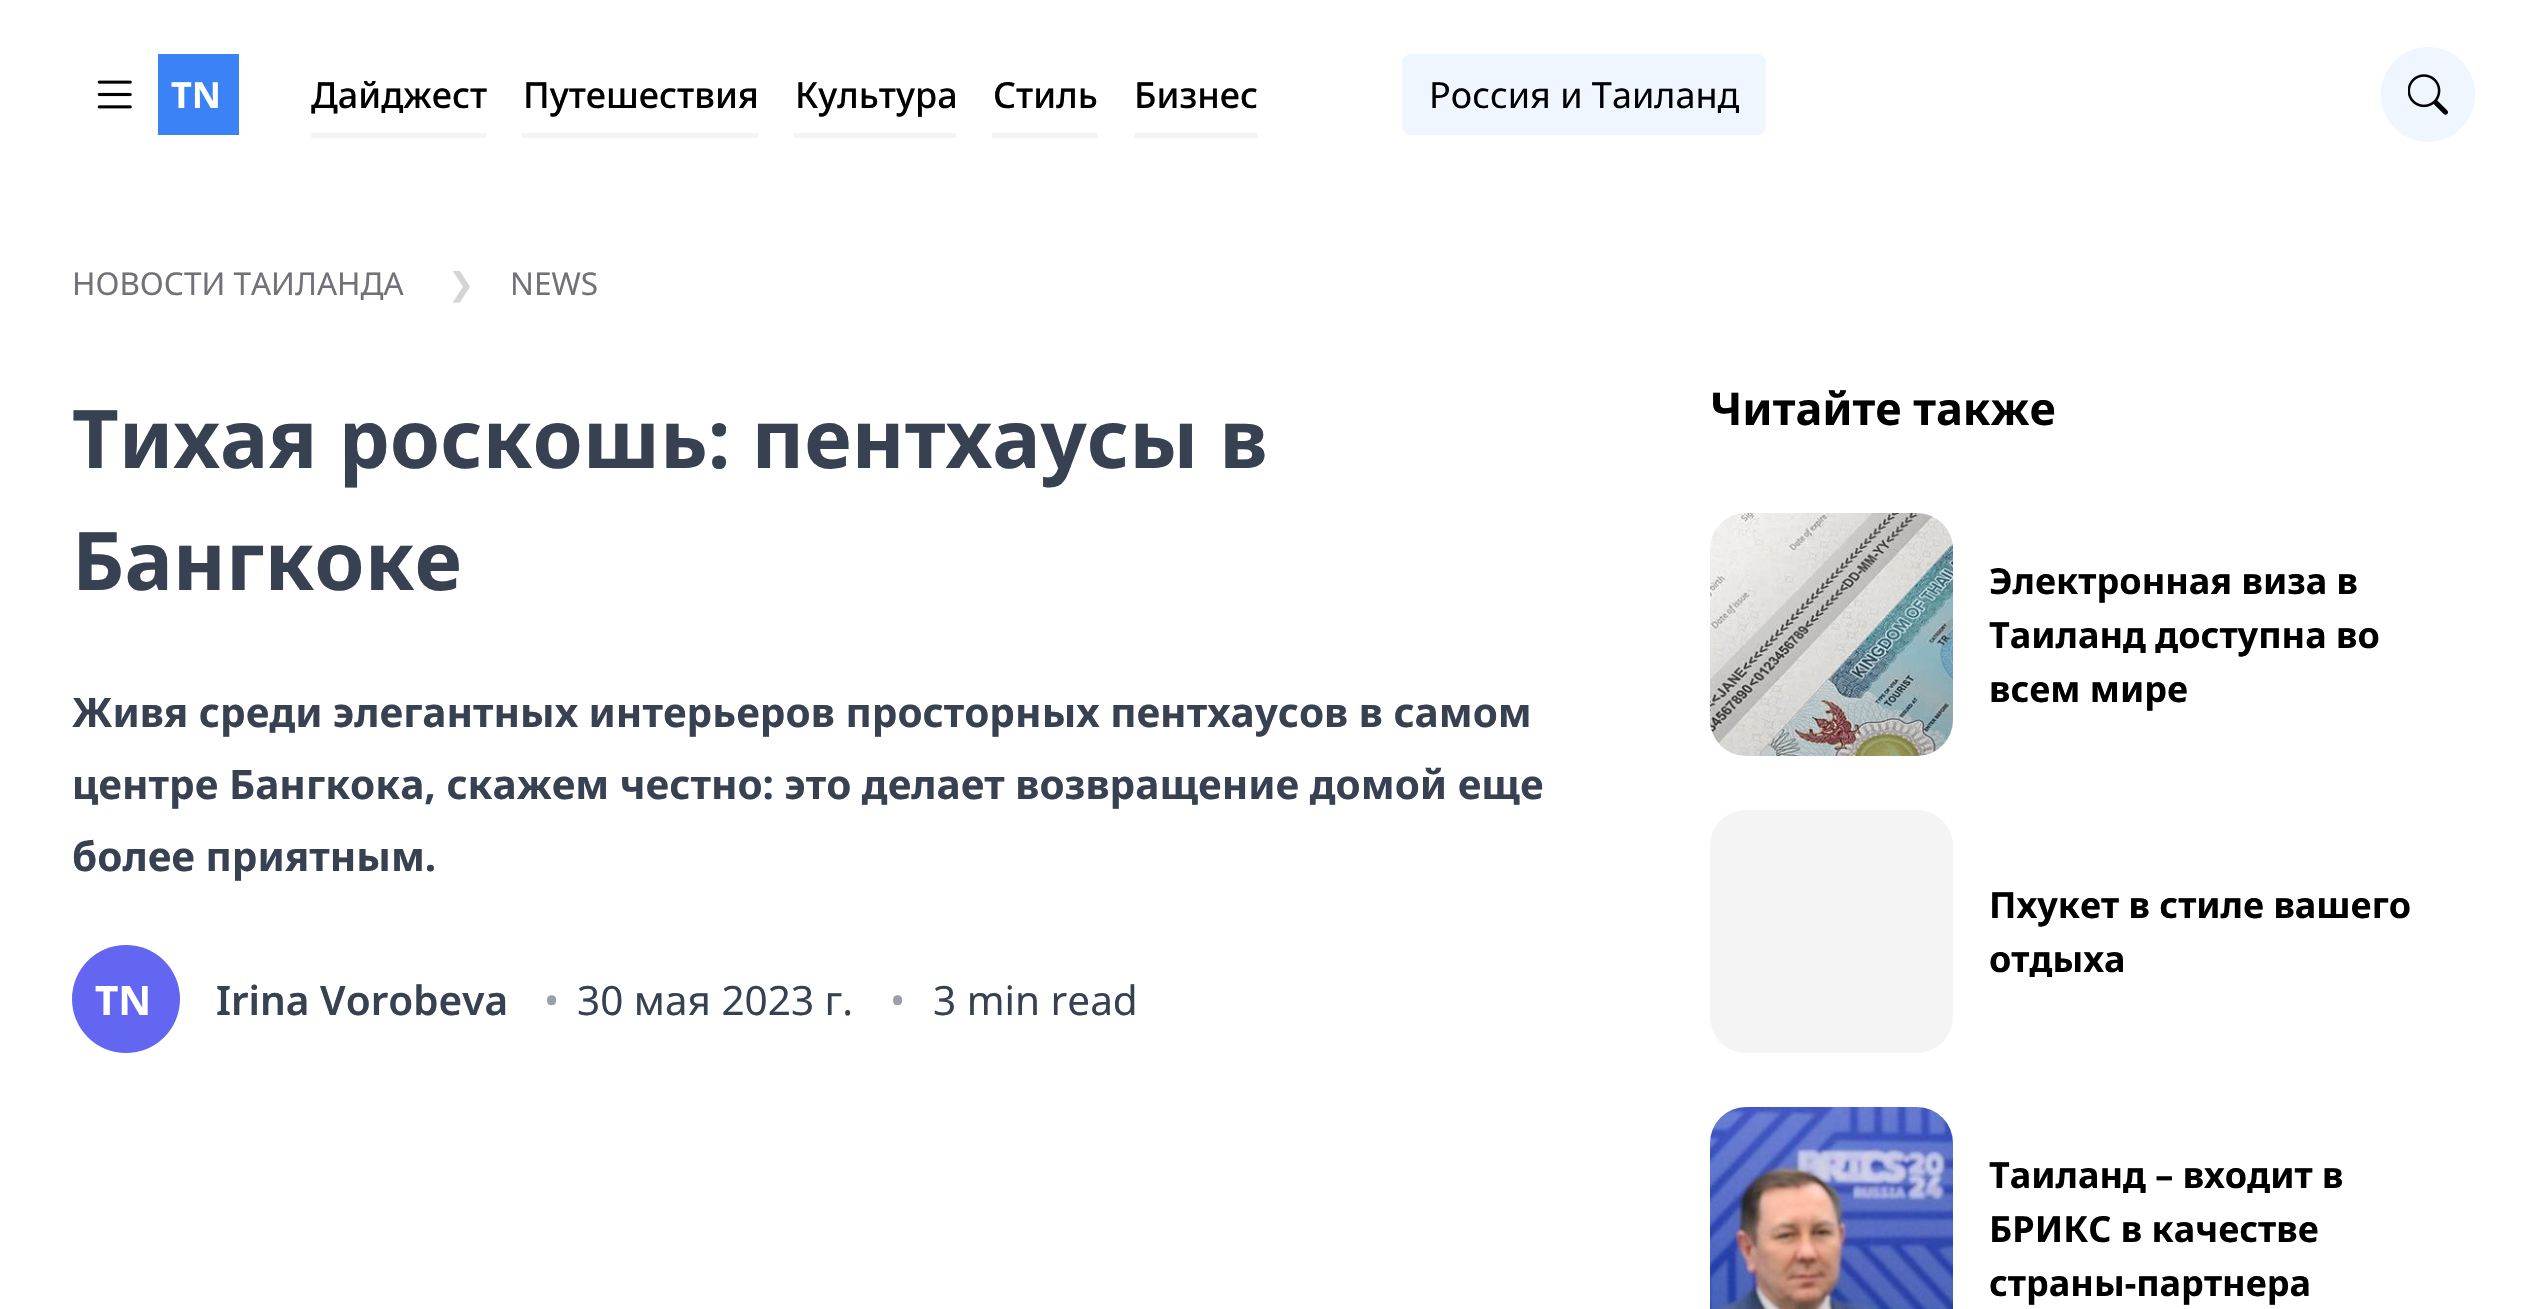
#include "include/core/SkBlurTypes.h"
#include "include/core/SkCanvas.h"
#include "include/core/SkData.h"
#include "include/core/SkFont.h"
#include "include/core/SkFontMgr.h"
#include "include/core/SkImage.h"
#include "include/core/SkMaskFilter.h"
#include "include/core/SkPaint.h"
#include "include/core/SkPathBuilder.h"
#include "include/core/SkTextBlob.h"
#include "include/effects/SkDashPathEffect.h"
#include "include/effects/SkGradientShader.h"
#include "include/utils/SkParsePath.h"

extern sk_sp<SkFontMgr> fontMgr;

void draw(SkCanvas* canvas) {
  SkPaint p;
  p.setAntiAlias(true);
  canvas->clear(SK_ColorWHITE);
  canvas->drawImageRect(SkImages::DeferredFromEncodedData(SkData::MakeFromFileName("images/1.png")), SkRect::MakeLTRB(97, 80, 132, 109), SkSamplingOptions());
  p.setColor(SkColorSetRGB(59, 130, 246));
  canvas->drawRect(SkRect::MakeLTRB(158, 54, 239, 135), p);
  p.setColor(SkColorSetRGB(244, 244, 245));
  canvas->drawRect(SkRect::MakeLTRB(311, 133, 486, 138), p);
  canvas->drawRect(SkRect::MakeLTRB(522, 133, 758, 138), p);
  canvas->drawRect(SkRect::MakeLTRB(794, 133, 956, 138), p);
  canvas->drawRect(SkRect::MakeLTRB(992, 133, 1098, 138), p);
  canvas->drawRect(SkRect::MakeLTRB(1134, 133, 1258, 138), p);
  p.setColor(SkColorSetRGB(239, 246, 255));
  canvas->drawRoundRect(SkRect::MakeLTRB(1402, 54, 1766, 135), 9, 9, p);
  canvas->drawRoundRect(SkRect::MakeLTRB(2381, 47, 2475, 142), 47, 47, p);
  canvas->drawImageRect(SkImages::DeferredFromEncodedData(SkData::MakeFromFileName("images/2.png")), SkRect::MakeLTRB(2408, 74, 2448, 115), SkSamplingOptions());
  p.setColor(SkColorSetRGB(99, 102, 241));
  canvas->drawCircle(126, 999, 54, p);
  p.setColor(SkColorSetRGB(244, 244, 245));
  canvas->drawRoundRect(SkRect::MakeLTRB(1710, 513, 1953, 756), 36, 36, p);
  canvas->drawImageRect(SkImages::DeferredFromEncodedData(SkData::MakeFromFileName("images/3.png")), SkRect::MakeLTRB(1710, 513, 1953, 756), SkSamplingOptions());
  canvas->drawRoundRect(SkRect::MakeLTRB(1710, 810, 1953, 1053), 36, 36, p);
  canvas->drawRoundRect(SkRect::MakeLTRB(1710, 1107, 1953, 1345), 36, 36, p);
  canvas->drawImageRect(SkImages::DeferredFromEncodedData(SkData::MakeFromFileName("images/4.png")), SkRect::MakeLTRB(1710, 1107, 1953, 1309), SkSamplingOptions());
  SkFont font1(fontMgr->matchFamilyStyle("Noto Sans", SkFontStyle::Bold()), 36);
  font1.setSubpixel(true);
  p.setColor(SK_ColorWHITE);
  canvas->drawString("TN", 171, 108, font1, p);
  canvas->save();
  canvas->clipRect(SkRect::MakeLTRB(311, 36, 1766, 153));
  SkFont font2(fontMgr->matchFamilyStyle("Noto Sans", SkFontStyle(500, SkFontStyle::kNormal_Width, SkFontStyle::kUpright_Slant)), 36);
  font2.setSubpixel(true);
  p.setColor(SK_ColorBLACK);
  canvas->drawString("Дайджест", 311, 108, font2, p);
  canvas->restore();
  canvas->drawString("Путешествия", 523, 108, font2, p);
  canvas->drawString("Культура", 795, 108, font2, p);
  canvas->drawString("Стиль", 993, 108, font2, p);
  canvas->drawString("Бизнес", 1134, 108, font2, p);
  SkFont font3(fontMgr->matchFamilyStyle("Noto Sans", SkFontStyle::Normal()), 36);
  font3.setSubpixel(true);
  canvas->drawString("Россия и Таиланд", 1429, 108, font3, p);
  SkFont font4(fontMgr->matchFamilyStyle("Noto Sans", SkFontStyle::Normal()), 31.5f);
  font4.setSubpixel(true);
  p.setColor(SkColorSetRGB(113, 113, 122));
  canvas->drawString("НОВОСТИ ТАИЛАНДА", 72, 295, font4, p);
  SkFont font5(fontMgr->matchFamilyStyle("DejaVu Sans", SkFontStyle::Normal()), 31.5f);
  font5.setSubpixel(true);
  p.setColor(SkColorSetRGB(212, 212, 215));
  canvas->drawString("❯", 448, 295, font5, p);
  p.setColor(SkColorSetRGB(113, 113, 122));
  canvas->drawString("NEWS", 510, 295, font4, p);
  SkFont font6(fontMgr->matchFamilyStyle("Noto Sans", SkFontStyle::Bold()), 81);
  font6.setSubpixel(true);
  p.setColor(SkColorSetRGB(55, 65, 81));
  canvas->drawString("Тихая роскошь: пентхаусы в", 72, 468, font6, p);
  canvas->drawString("Бангкоке", 72, 590, font6, p);
  SkFont font7(fontMgr->matchFamilyStyle("Noto Sans", SkFontStyle::Bold()), 40.5f);
  font7.setSubpixel(true);
  canvas->drawString("Живя среди элегантных интерьеров просторных пентхаусов в самом", 72, 727, font7, p);
  canvas->drawString("центре Бангкока, скажем честно: это делает возвращение домой еще", 72, 799, font7, p);
  canvas->drawString("более приятным.", 72, 871, font7, p);
  p.setColor(SK_ColorWHITE);
  canvas->drawString("TN", 95, 1015, font7, p);
  SkFont font8(fontMgr->matchFamilyStyle("Noto Sans", SkFontStyle(600, SkFontStyle::kNormal_Width, SkFontStyle::kUpright_Slant)), 40.5f);
  font8.setSubpixel(true);
  p.setColor(SkColorSetRGB(55, 65, 81));
  canvas->drawString("Irina Vorobeva", 216, 1015, font8, p);
  SkFont font9(fontMgr->matchFamilyStyle("Noto Sans", SkFontStyle::Normal()), 40.5f);
  font9.setSubpixel(true);
  p.setColor(SkColorSetRGB(155, 160, 168));
  canvas->drawString("•", 544, 1015, font9, p);
  p.setColor(SkColorSetRGB(55, 65, 81));
  canvas->drawString("30 мая 2023 г.", 577, 1015, font9, p);
  p.setColor(SkColorSetRGB(155, 160, 168));
  canvas->drawString("•", 890, 1015, font9, p);
  p.setColor(SkColorSetRGB(55, 65, 81));
  canvas->drawString("3 min read", 933, 1015, font9, p);
  SkFont font10(fontMgr->matchFamilyStyle("Noto Sans", SkFontStyle::Bold()), 45);
  font10.setSubpixel(true);
  p.setColor(SK_ColorBLACK);
  canvas->drawString("Читайте также", 1710, 425, font10, p);
  canvas->drawString("Электронная виза в", 1989, 594, font1, p);
  canvas->drawString("Таиланд доступна во", 1989, 648, font1, p);
  canvas->drawString("всем мире", 1989, 702, font1, p);
  canvas->drawString("Пхукет в стиле вашего", 1989, 918, font1, p);
  canvas->drawString("отдыха", 1989, 972, font1, p);
  canvas->drawString("Таиланд – входит в", 1989, 1188, font1, p);
  canvas->drawString("БРИКС в качестве", 1989, 1242, font1, p);
  canvas->drawString("страны-партнера", 1989, 1296, font1, p);
}
